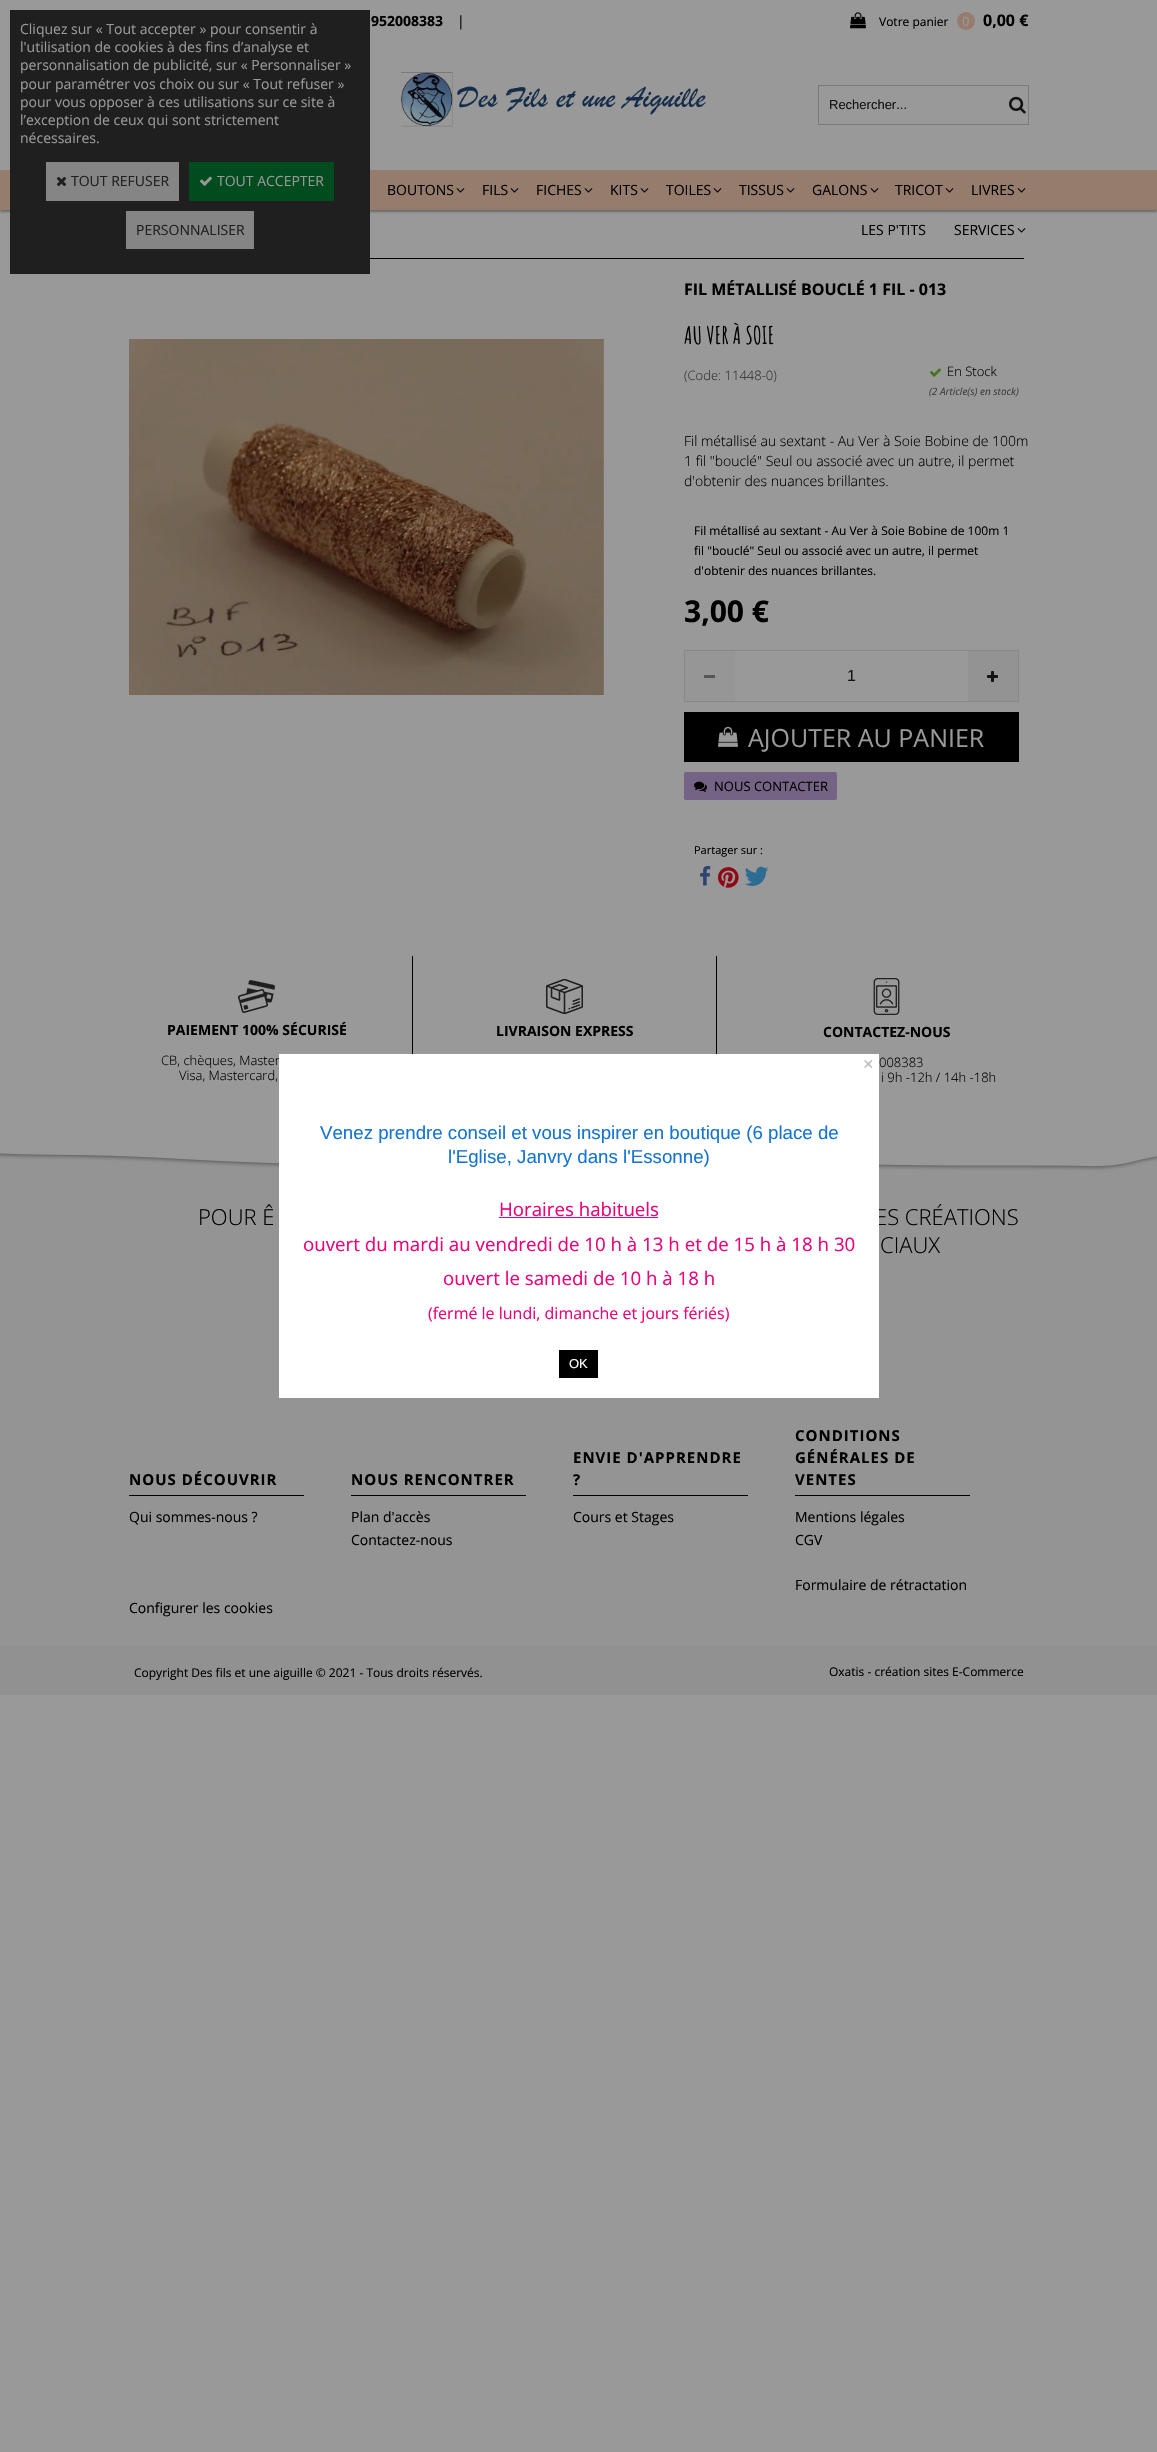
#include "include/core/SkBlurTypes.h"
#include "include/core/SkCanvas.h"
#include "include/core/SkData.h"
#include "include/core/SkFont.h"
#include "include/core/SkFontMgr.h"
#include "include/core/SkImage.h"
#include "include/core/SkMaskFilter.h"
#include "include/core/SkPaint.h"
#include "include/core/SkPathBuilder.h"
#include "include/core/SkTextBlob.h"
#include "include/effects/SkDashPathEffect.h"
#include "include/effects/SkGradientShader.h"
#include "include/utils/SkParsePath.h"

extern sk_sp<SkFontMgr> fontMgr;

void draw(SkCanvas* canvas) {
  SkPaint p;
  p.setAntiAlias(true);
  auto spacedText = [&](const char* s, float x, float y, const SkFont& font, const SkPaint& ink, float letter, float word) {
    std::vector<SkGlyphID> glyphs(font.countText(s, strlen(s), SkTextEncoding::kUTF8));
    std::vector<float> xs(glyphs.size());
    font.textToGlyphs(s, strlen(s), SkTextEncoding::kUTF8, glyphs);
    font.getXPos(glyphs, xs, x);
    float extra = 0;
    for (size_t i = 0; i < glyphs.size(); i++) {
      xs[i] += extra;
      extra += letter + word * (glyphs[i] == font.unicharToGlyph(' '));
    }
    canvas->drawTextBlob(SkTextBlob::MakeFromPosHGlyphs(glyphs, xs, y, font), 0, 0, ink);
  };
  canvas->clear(SkColorSetRGB(153, 153, 153));
  p.setColor(SkColorSetARGB(77, 0, 0, 0));
  p.setMaskFilter(SkMaskFilter::MakeBlur(kNormal_SkBlurStyle, 1));
  canvas->drawRect(SkRect::MakeLTRB(0, 172, 1157, 212), p);
  p.setMaskFilter(nullptr);
  p.setColor(SkColorSetRGB(149, 124, 108));
  canvas->drawRect(SkRect::MakeLTRB(0, 170, 1157, 210), p);
  p.setColor(SkColorSetRGB(31, 31, 31));
  canvas->drawRect(SkRect::MakeLTRB(10, 10, 370, 274), p);
  p.setColor(SkColorSetRGB(133, 133, 133));
  canvas->drawRect(SkRect::MakeLTRB(46, 162, 179, 201), p);
  canvas->drawImageRect(SkImages::DeferredFromEncodedData(SkData::MakeFromFileName("images/1.png")), SkRect::MakeLTRB(56, 176, 67, 187), SkSamplingOptions());
  p.setColor(SkColorSetRGB(0, 76, 31));
  canvas->drawRect(SkRect::MakeLTRB(189, 162, 334, 201), p);
  canvas->drawImageRect(SkImages::DeferredFromEncodedData(SkData::MakeFromFileName("images/2.png")), SkRect::MakeLTRB(200, 176, 212, 186), SkSamplingOptions());
  p.setColor(SkColorSetRGB(133, 133, 133));
  canvas->drawRect(SkRect::MakeLTRB(126, 211, 254, 249), p);
  canvas->drawImageRect(SkImages::DeferredFromEncodedData(SkData::MakeFromFileName("images/3.png")), SkRect::MakeLTRB(850, 12, 866, 29), SkSamplingOptions());
  p.setColor(SkColorSetRGB(149, 124, 108));
  canvas->drawCircle(966, 21, 9, p);
  canvas->drawImageRect(SkImages::DeferredFromEncodedData(SkData::MakeFromFileName("images/4.png")), SkRect::MakeLTRB(401, 72, 706, 127), SkSamplingOptions());
  p.setStyle(SkPaint::kStroke_Style);
  p.setStrokeWidth(1);
  p.setColor(SkColorSetRGB(122, 122, 122));
  canvas->drawRect(SkRect::MakeLTRB(818.5f, 85.5f, 1028.5f, 124.5f), p);
  canvas->drawImageRect(SkImages::DeferredFromEncodedData(SkData::MakeFromFileName("images/5.png")), SkRect::MakeLTRB(1009, 96, 1026, 114), SkSamplingOptions());
  canvas->drawImageRect(SkImages::DeferredFromEncodedData(SkData::MakeFromFileName("images/6.png")), SkRect::MakeLTRB(456, 188, 465, 193), SkSamplingOptions());
  canvas->drawImageRect(SkImages::DeferredFromEncodedData(SkData::MakeFromFileName("images/6.png")), SkRect::MakeLTRB(510, 188, 519, 193), SkSamplingOptions());
  canvas->drawImageRect(SkImages::DeferredFromEncodedData(SkData::MakeFromFileName("images/6.png")), SkRect::MakeLTRB(584, 188, 593, 193), SkSamplingOptions());
  canvas->drawImageRect(SkImages::DeferredFromEncodedData(SkData::MakeFromFileName("images/6.png")), SkRect::MakeLTRB(640, 188, 649, 193), SkSamplingOptions());
  canvas->drawImageRect(SkImages::DeferredFromEncodedData(SkData::MakeFromFileName("images/6.png")), SkRect::MakeLTRB(713, 188, 722, 193), SkSamplingOptions());
  canvas->drawImageRect(SkImages::DeferredFromEncodedData(SkData::MakeFromFileName("images/6.png")), SkRect::MakeLTRB(786, 188, 795, 193), SkSamplingOptions());
  canvas->drawImageRect(SkImages::DeferredFromEncodedData(SkData::MakeFromFileName("images/6.png")), SkRect::MakeLTRB(870, 188, 879, 193), SkSamplingOptions());
  canvas->drawImageRect(SkImages::DeferredFromEncodedData(SkData::MakeFromFileName("images/6.png")), SkRect::MakeLTRB(945, 188, 954, 193), SkSamplingOptions());
  canvas->drawImageRect(SkImages::DeferredFromEncodedData(SkData::MakeFromFileName("images/6.png")), SkRect::MakeLTRB(1017, 188, 1026, 193), SkSamplingOptions());
  canvas->drawImageRect(SkImages::DeferredFromEncodedData(SkData::MakeFromFileName("images/7.png")), SkRect::MakeLTRB(1017, 228, 1026, 233), SkSamplingOptions());
  p.setStyle(SkPaint::kFill_Style);
  p.setColor(SK_ColorBLACK);
  canvas->drawRect(SkRect::MakeLTRB(370, 258, 1024, 259), p);
  canvas->drawImageRect(SkImages::DeferredFromEncodedData(SkData::MakeFromFileName("images/8.png")), SkRect::MakeLTRB(129, 339, 604, 695), SkSamplingOptions());
  canvas->drawImageRect(SkImages::DeferredFromEncodedData(SkData::MakeFromFileName("images/9.png")), SkRect::MakeLTRB(929, 368, 942, 377), SkSamplingOptions());
  p.setStyle(SkPaint::kStroke_Style);
  p.setColor(SkColorSetRGB(136, 136, 136));
  canvas->drawRect(SkRect::MakeLTRB(684.5f, 650.5f, 1018.5f, 701.5f), p);
  p.setStyle(SkPaint::kFill_Style);
  p.setColor(SkColorSetRGB(150, 150, 150));
  canvas->drawRect(SkRect::MakeLTRB(685, 651, 735, 701), p);
  p.setColor(SkColorSetRGB(85, 85, 85));
  canvas->drawRect(SkRect::MakeLTRB(704, 675, 715, 678), p);
  p.setColor(SkColorSetRGB(147, 147, 147));
  canvas->drawRect(SkRect::MakeLTRB(968, 651, 1018, 701), p);
  canvas->drawImageRect(SkImages::DeferredFromEncodedData(SkData::MakeFromFileName("images/10.png")), SkRect::MakeLTRB(987, 671, 998, 682), SkSamplingOptions());
  p.setColor(SK_ColorBLACK);
  canvas->drawRect(SkRect::MakeLTRB(684, 712, 1019, 762), p);
  canvas->drawImageRect(SkImages::DeferredFromEncodedData(SkData::MakeFromFileName("images/11.png")), SkRect::MakeLTRB(718, 726, 738, 747), SkSamplingOptions());
  p.setColor(SkColorSetRGB(117, 99, 133));
  canvas->drawRoundRect(SkRect::MakeLTRB(684, 772, 837, 800), 2, 2, p);
  canvas->drawImageRect(SkImages::DeferredFromEncodedData(SkData::MakeFromFileName("images/12.png")), SkRect::MakeLTRB(694, 781, 707, 792), SkSamplingOptions());
  canvas->drawImageRect(SkImages::DeferredFromEncodedData(SkData::MakeFromFileName("images/13.png")), SkRect::MakeLTRB(700, 866, 711, 886), SkSamplingOptions());
  canvas->drawImageRect(SkImages::DeferredFromEncodedData(SkData::MakeFromFileName("images/14.png")), SkRect::MakeLTRB(718, 867, 739, 888), SkSamplingOptions());
  canvas->drawImageRect(SkImages::DeferredFromEncodedData(SkData::MakeFromFileName("images/15.png")), SkRect::MakeLTRB(744, 866, 769, 886), SkSamplingOptions());
  canvas->drawImageRect(SkImages::DeferredFromEncodedData(SkData::MakeFromFileName("images/16.png")), SkRect::MakeLTRB(238, 980, 275, 1013), SkSamplingOptions());
  p.setColor(SK_ColorBLACK);
  canvas->drawRect(SkRect::MakeLTRB(412, 956, 413, 1054), p);
  canvas->drawImageRect(SkImages::DeferredFromEncodedData(SkData::MakeFromFileName("images/17.png")), SkRect::MakeLTRB(546, 979, 583, 1014), SkSamplingOptions());
  canvas->drawRect(SkRect::MakeLTRB(716, 956, 717, 1054), p);
  canvas->drawImageRect(SkImages::DeferredFromEncodedData(SkData::MakeFromFileName("images/18.png")), SkRect::MakeLTRB(873, 978, 900, 1015), SkSamplingOptions());
  p.setColor(SkColorSetRGB(148, 148, 148));
  canvas->drawRect(SkRect::MakeLTRB(0, 1172, 1157, 1645), p);
  canvas->drawImageRect(SkImages::DeferredFromEncodedData(SkData::MakeFromFileName("images/19.png")), SkRect::MakeLTRB(0, 1136, 1157, 1172), SkSamplingOptions());
  p.setColor(SK_ColorBLACK);
  canvas->drawRect(SkRect::MakeLTRB(129, 1495, 304, 1496), p);
  canvas->drawRect(SkRect::MakeLTRB(351, 1495, 526, 1496), p);
  canvas->drawRect(SkRect::MakeLTRB(573, 1495, 748, 1496), p);
  canvas->drawRect(SkRect::MakeLTRB(795, 1495, 970, 1496), p);
  p.setColor(SkColorSetRGB(145, 145, 145));
  canvas->drawRect(SkRect::MakeLTRB(0, 1645, 1157, 1695), p);
  SkFont font1(fontMgr->matchFamilyStyle("Open Sans", SkFontStyle::Normal()), 14);
  font1.setSubpixel(true);
  p.setColor(SkColorSetRGB(153, 153, 153));
  canvas->drawString("Cliquez sur « Tout accepter » pour consentir à", 20, 34, font1, p);
  canvas->drawString("l'utilisation de cookies à des fins d’analyse et", 20, 52, font1, p);
  canvas->drawString("personnalisation de publicité, sur « Personnaliser »", 20, 70, font1, p);
  canvas->drawString("pour paramétrer vos choix ou sur « Tout refuser »", 20, 89, font1, p);
  canvas->drawString("pour vous opposer à ces utilisations sur ce site à", 20, 107, font1, p);
  canvas->drawString("l’exception de ceux qui sont strictement", 20, 125, font1, p);
  canvas->drawString("nécessaires.", 20, 143, font1, p);
  p.setColor(SkColorSetRGB(31, 31, 31));
  canvas->drawString("TOUT REFUSER", 71, 186, font1, p);
  p.setColor(SkColorSetRGB(153, 153, 153));
  canvas->drawString("TOUT ACCEPTER", 217, 186, font1, p);
  p.setColor(SkColorSetRGB(31, 31, 31));
  canvas->drawString("PERSONNALISER", 136, 235, font1, p);
  SkFont font2(fontMgr->matchFamilyStyle("Open Sans", SkFontStyle::Bold()), 14);
  font2.setSubpixel(true);
  p.setColor(SK_ColorBLACK);
  canvas->drawString("952008383", 371, 26, font2, p);
  canvas->drawString("|", 457, 26, font1, p);
  SkFont font3(fontMgr->matchFamilyStyle("Open Sans", SkFontStyle::Normal()), 12);
  font3.setSubpixel(true);
  canvas->drawString("Votre panier", 879, 26, font3, p);
  SkFont font4(fontMgr->matchFamilyStyle("Open Sans", SkFontStyle::Normal()), 13);
  font4.setSubpixel(true);
  p.setColor(SkColorSetRGB(153, 153, 153));
  canvas->drawString("0", 962, 26, font4, p);
  SkFont font5(fontMgr->matchFamilyStyle("Open Sans", SkFontStyle::Bold()), 16);
  font5.setSubpixel(true);
  p.setColor(SK_ColorBLACK);
  canvas->drawString("0,00 €", 983, 26, font5, p);
  SkFont font6(fontMgr->matchFamilyStyle("Liberation Sans", SkFontStyle::Normal()), 13);
  font6.setSubpixel(true);
  p.setColor(SkColorSetRGB(20, 20, 20));
  canvas->drawString("Rechercher...", 829, 109, font6, p);
  p.setColor(SK_ColorBLACK);
  canvas->drawString("BOUTONS", 387, 195, font1, p);
  canvas->drawString("FILS", 482, 195, font1, p);
  canvas->drawString("FICHES", 536, 195, font1, p);
  canvas->drawString("KITS", 610, 195, font1, p);
  canvas->drawString("TOILES", 666, 195, font1, p);
  canvas->drawString("TISSUS", 739, 195, font1, p);
  canvas->drawString("GALONS", 812, 195, font1, p);
  canvas->drawString("TRICOT", 895, 195, font1, p);
  canvas->drawString("LIVRES", 971, 195, font1, p);
  canvas->drawString("LES P'TITS", 861, 235, font1, p);
  canvas->drawString("SERVICES", 954, 235, font1, p);
  canvas->drawString("FIL MÉTALLISÉ BOUCLÉ 1 FIL - 013", 684, 295, font5, p);
  SkFont font7(fontMgr->matchFamilyStyle("Amatic SC", SkFontStyle::Bold()), 24);
  font7.setSubpixel(true);
  canvas->drawString("AU VER À SOIE", 684, 344, font7, p);
  SkFont font8(fontMgr->matchFamilyStyle("Open Sans", SkFontStyle(300, SkFontStyle::kNormal_Width, SkFontStyle::kUpright_Slant)), 13);
  font8.setSubpixel(true);
  p.setColor(SkColorSetRGB(51, 51, 51));
  canvas->drawString("(Code: 11448-0)", 684, 380, font8, p);
  p.setColor(SK_ColorBLACK);
  canvas->drawString("En Stock", 947, 376, font8, p);
  SkFont font9(fontMgr->matchFamilyStyle("Open Sans", SkFontStyle::Italic()), 10);
  font9.setSubpixel(true);
  p.setColor(SkColorSetRGB(61, 61, 61));
  canvas->drawString("(2 Article(s) en stock)", 929, 395, font9, p);
  SkFont font10(fontMgr->matchFamilyStyle("Open Sans", SkFontStyle(300, SkFontStyle::kNormal_Width, SkFontStyle::kUpright_Slant)), 14);
  font10.setSubpixel(true);
  p.setColor(SK_ColorBLACK);
  canvas->drawString("Fil métallisé au sextant - Au Ver à Soie Bobine de 100m", 684, 446, font10, p);
  canvas->drawString("1 fil \"bouclé\" Seul ou associé avec un autre, il permet", 684, 466, font10, p);
  canvas->drawString("d'obtenir des nuances brillantes.", 684, 486, font10, p);
  canvas->drawString("Fil métallisé au sextant - Au Ver à Soie Bobine de 100m 1", 694, 535, font3, p);
  canvas->drawString("fil \"bouclé\" Seul ou associé avec un autre, il permet", 694, 555, font3, p);
  canvas->drawString("d'obtenir des nuances brillantes.", 694, 575, font3, p);
  SkFont font11(fontMgr->matchFamilyStyle("Open Sans", SkFontStyle::Bold()), 30);
  font11.setSubpixel(true);
  canvas->drawString("3,00 €", 684, 622, font11, p);
  SkFont font12(fontMgr->matchFamilyStyle("Liberation Sans", SkFontStyle::Normal()), 16);
  font12.setSubpixel(true);
  p.setColor(SkColorSetRGB(20, 20, 20));
  canvas->drawString("1", 847, 681, font12, p);
  SkFont font13(fontMgr->matchFamilyStyle("Open Sans", SkFontStyle::Normal()), 25);
  font13.setSubpixel(true);
  p.setColor(SkColorSetRGB(153, 153, 153));
  canvas->drawString("AJOUTER AU PANIER", 748, 747, font13, p);
  p.setColor(SK_ColorBLACK);
  canvas->drawString("NOUS CONTACTER", 714, 791, font4, p);
  SkFont font14(fontMgr->matchFamilyStyle("Open Sans", SkFontStyle::Normal()), 11);
  font14.setSubpixel(true);
  canvas->drawString("Partager sur :", 694, 854, font14, p);
  canvas->drawString("PAIEMENT 100% SÉCURISÉ", 167, 1035, font2, p);
  canvas->drawString("CB, chèques, Master", 161, 1065, font8, p);
  canvas->drawString("Visa, Mastercard,", 179, 1080, font8, p);
  canvas->drawString("LIVRAISON EXPRESS", 496, 1036, font2, p);
  canvas->drawString("CONTACTEZ-NOUS", 823, 1037, font2, p);
  canvas->drawString("008383", 879, 1067, font8, p);
  canvas->drawString("i 9h -12h / 14h -18h", 881, 1082, font8, p);
  SkFont font15(fontMgr->matchFamilyStyle("Open Sans", SkFontStyle(300, SkFontStyle::kNormal_Width, SkFontStyle::kUpright_Slant)), 22);
  font15.setSubpixel(true);
  canvas->drawString("POUR Ê", 198, 1225, font15, p);
  canvas->drawString("ES CRÉATIONS", 875, 1225, font15, p);
  canvas->drawString("CIAUX", 880, 1253, font15, p);
  SkFont font16(fontMgr->matchFamilyStyle("Open Sans", SkFontStyle::Bold()), 15);
  font16.setSubpixel(true);
  spacedText("NOUS DÉCOUVRIR", 129, 1485, font16, p, 1, 0);
  spacedText("NOUS RENCONTRER", 351, 1485, font16, p, 1, 0);
  spacedText("ENVIE D'APPRENDRE", 573, 1463, font16, p, 1, 0);
  spacedText("?", 573, 1485, font16, p, 1, 0);
  spacedText("CONDITIONS", 795, 1441, font16, p, 1, 0);
  spacedText("GÉNÉRALES DE", 795, 1463, font16, p, 1, 0);
  spacedText("VENTES", 795, 1485, font16, p, 1, 0);
  canvas->drawString("Qui sommes-nous ?", 129, 1522, font1, p);
  canvas->drawString("Plan d'accès", 351, 1522, font1, p);
  canvas->drawString("Cours et Stages", 573, 1522, font1, p);
  canvas->drawString("Mentions légales", 795, 1522, font1, p);
  canvas->drawString("Contactez-nous", 351, 1545, font1, p);
  canvas->drawString("CGV", 795, 1545, font1, p);
  canvas->drawString("Formulaire de rétractation", 795, 1590, font1, p);
  canvas->drawString("Configurer les cookies", 129, 1613, font1, p);
  canvas->drawString("Copyright Des fils et une aiguille © 2021 - Tous droits réservés.", 134, 1677, font3, p);
  canvas->drawString("Oxatis - création sites E-Commerce", 829, 1676, font3, p);
  p.setColor(SK_ColorWHITE);
  canvas->drawRect(SkRect::MakeLTRB(279, 1054, 879, 1398), p);
  SkFont font17(fontMgr->matchFamilyStyle("Liberation Sans", SkFontStyle::Normal()), 18);
  font17.setSubpixel(true);
  p.setColor(SkColorSetRGB(187, 187, 187));
  canvas->drawString("×", 863, 1070, font17, p);
  SkFont font18(fontMgr->matchFamilyStyle("Liberation Sans", SkFontStyle::Normal()), 18.7f);
  font18.setSubpixel(true);
  p.setColor(SkColorSetRGB(21, 116, 212));
  canvas->drawString("Venez prendre conseil et vous inspirer en boutique (6 place de", 320, 1139, font18, p);
  canvas->drawString("l'Eglise, Janvry dans l'Essonne)", 448, 1163, font18, p);
  SkFont font19(fontMgr->matchFamilyStyle("Open Sans", SkFontStyle::Normal()), 18.7f);
  font19.setSubpixel(true);
  p.setColor(SkColorSetRGB(239, 0, 120));
  canvas->drawString("Horaires habituels", 499, 1216, font19, p);
  canvas->drawRect(SkRect::MakeLTRB(499, 1217, 658, 1218), p);
  canvas->drawString("ouvert du mardi au vendredi de 10 h à 13 h et de 15 h à 18 h 30", 303, 1251, font19, p);
  canvas->drawString("ouvert le samedi de 10 h à 18 h", 443, 1285, font19, p);
  SkFont font20(fontMgr->matchFamilyStyle("Open Sans", SkFontStyle::Normal()), 16);
  font20.setSubpixel(true);
  canvas->drawString("(fermé le lundi, dimanche et jours fériés)", 428, 1319, font20, p);
  p.setColor(SK_ColorBLACK);
  canvas->drawRect(SkRect::MakeLTRB(559, 1350, 598, 1378), p);
  p.setColor(SK_ColorWHITE);
  canvas->drawString("OK", 569, 1368, font6, p);
}
